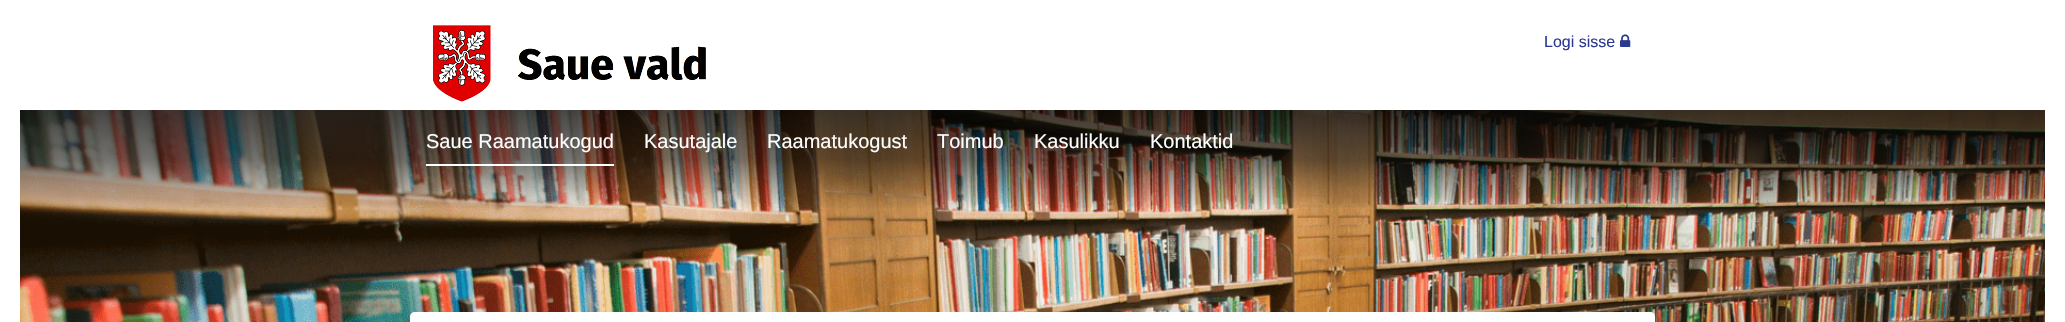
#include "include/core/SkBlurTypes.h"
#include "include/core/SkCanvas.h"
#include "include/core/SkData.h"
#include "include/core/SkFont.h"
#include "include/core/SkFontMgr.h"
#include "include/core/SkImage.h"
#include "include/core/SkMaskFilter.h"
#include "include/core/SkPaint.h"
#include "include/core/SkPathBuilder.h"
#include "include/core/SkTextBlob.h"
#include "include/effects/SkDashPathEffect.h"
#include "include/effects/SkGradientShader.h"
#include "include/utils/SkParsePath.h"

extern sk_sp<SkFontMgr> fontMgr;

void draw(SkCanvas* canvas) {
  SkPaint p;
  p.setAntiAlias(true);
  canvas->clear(SK_ColorWHITE);
  canvas->drawImageRect(SkImages::DeferredFromEncodedData(SkData::MakeFromFileName("images/4.png")), SkRect::MakeLTRB(20, 110, 2045, 322), SkSamplingOptions());
  canvas->drawImageRect(SkImages::DeferredFromEncodedData(SkData::MakeFromFileName("images/1.png")), SkRect::MakeLTRB(20, 110, 501, 188), SkSamplingOptions());
  canvas->drawImageRect(SkImages::DeferredFromEncodedData(SkData::MakeFromFileName("images/2.png")), SkRect::MakeLTRB(433, 25, 706, 102), SkSamplingOptions());
  canvas->drawImageRect(SkImages::DeferredFromEncodedData(SkData::MakeFromFileName("images/3.png")), SkRect::MakeLTRB(1620, 34, 1631, 47), SkSamplingOptions());
  {
    const SkColor colors[] = {SkColorSetARGB(179, 0, 0, 0), SkColorSetARGB(128, 0, 0, 0), SkColorSetARGB(0, 0, 0, 0)};
    const float stops[] = {0, 0.5f, 1};
    const SkPoint ends[] = {{1033, 110}, {1033, 210}};
    p.setShader(SkGradientShader::MakeLinear(ends, colors, stops, 3, SkTileMode::kClamp));
    p.setAlpha(255);
  }
  canvas->drawRect(SkRect::MakeLTRB(20, 110, 2045, 208), p);
  p.setShader(nullptr);
  p.setColor(SK_ColorWHITE);
  canvas->drawRect(SkRect::MakeLTRB(426, 164, 614, 166), p);
  canvas->drawPath(SkPathBuilder().moveTo(415, 312).lineTo(1650, 312).cubicTo(1653, 312, 1655, 314, 1655, 317).lineTo(1655, 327).lineTo(410, 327).lineTo(410, 317).cubicTo(410, 314, 412, 312, 415, 312).close().detach(), p);
  SkFont font1(fontMgr->matchFamilyStyle("Liberation Sans", SkFontStyle::Normal()), 16);
  font1.setSubpixel(true);
  p.setColor(SkColorSetRGB(43, 57, 144));
  canvas->drawString("Logi sisse", 1544, 47, font1, p);
  SkFont font2(fontMgr->matchFamilyStyle("Liberation Sans", SkFontStyle::Normal()), 20);
  font2.setSubpixel(true);
  p.setColor(SK_ColorWHITE);
  canvas->drawString("Saue Raamatukogud", 426, 148, font2, p);
  canvas->drawString("Kasutajale", 644, 148, font2, p);
  canvas->drawString("Raamatukogust", 767, 148, font2, p);
  canvas->drawString("Toimub", 937, 148, font2, p);
  canvas->drawString("Kasulikku", 1034, 148, font2, p);
  canvas->drawString("Kontaktid", 1150, 148, font2, p);
}
